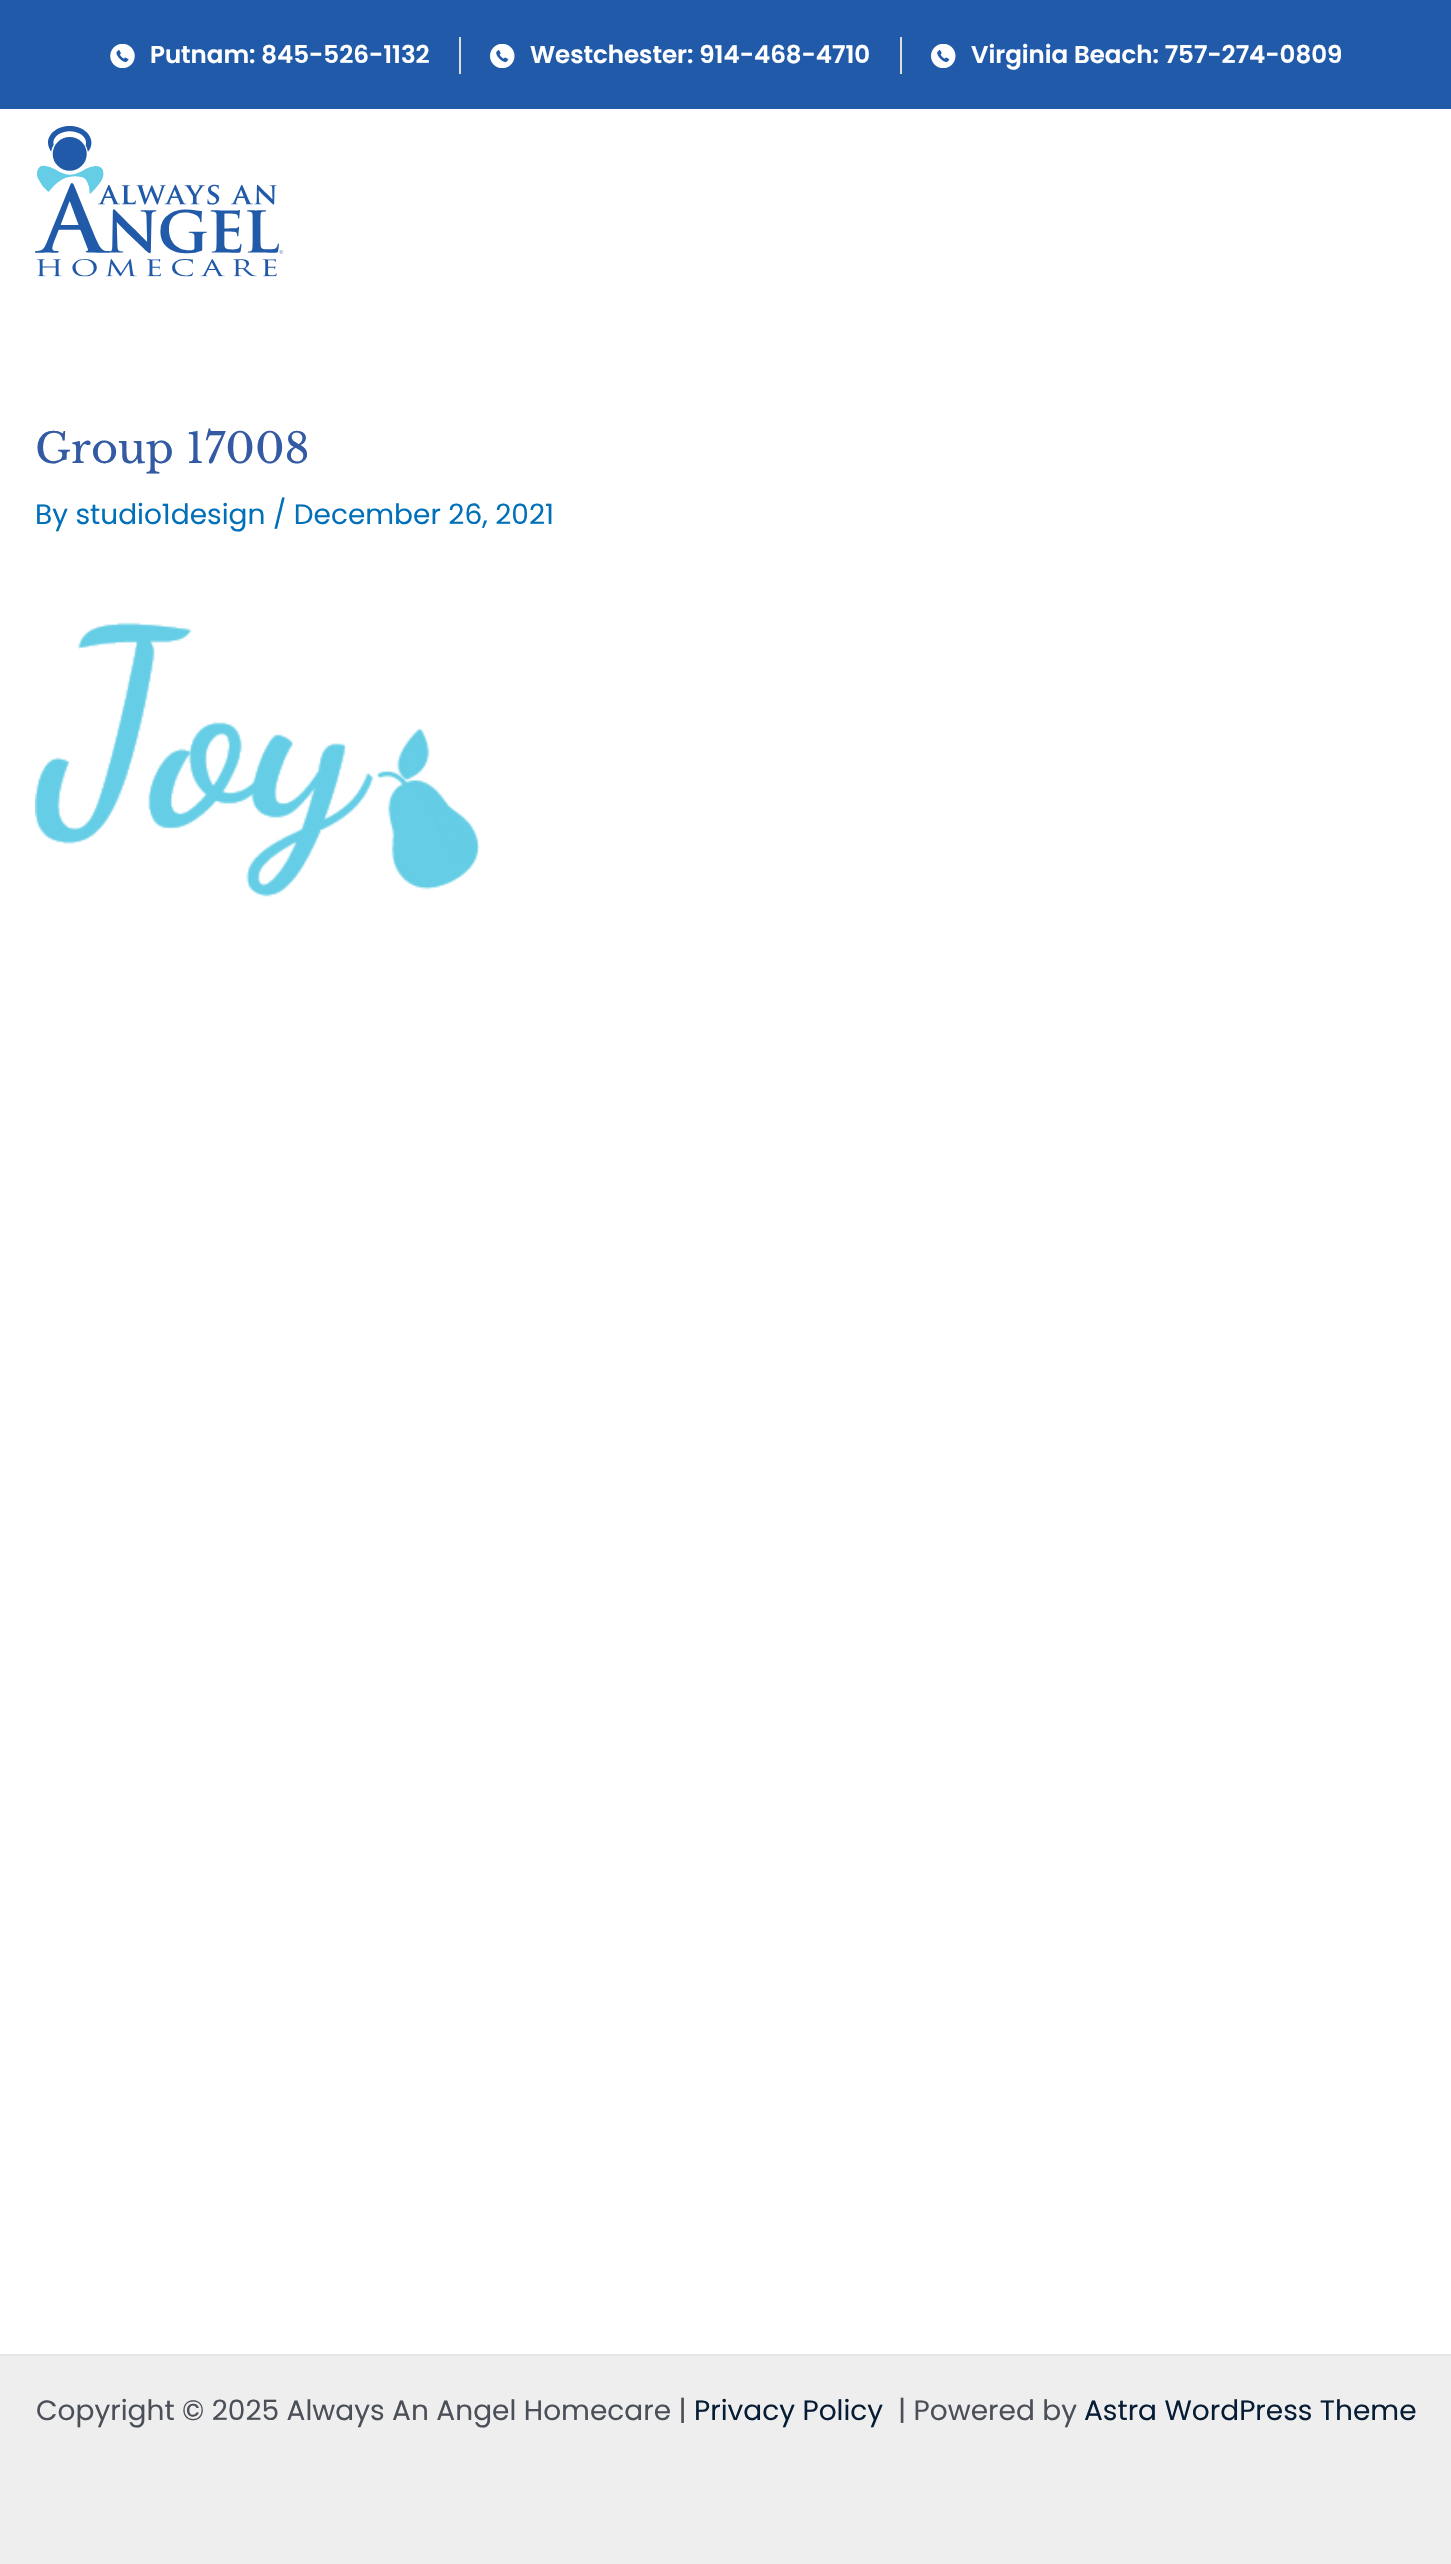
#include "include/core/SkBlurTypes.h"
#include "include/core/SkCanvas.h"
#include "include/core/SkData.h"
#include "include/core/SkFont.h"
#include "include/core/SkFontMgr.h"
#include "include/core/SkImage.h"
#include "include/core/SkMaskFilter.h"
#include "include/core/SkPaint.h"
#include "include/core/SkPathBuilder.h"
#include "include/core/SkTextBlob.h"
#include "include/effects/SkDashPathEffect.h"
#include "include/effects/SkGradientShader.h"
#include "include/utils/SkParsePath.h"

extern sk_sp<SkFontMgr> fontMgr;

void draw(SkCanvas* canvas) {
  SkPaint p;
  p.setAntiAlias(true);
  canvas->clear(SK_ColorWHITE);
  p.setColor(SkColorSetRGB(33, 90, 168));
  canvas->drawRect(SkRect::MakeLTRB(0, 0, 1451, 109), p);
  canvas->drawImageRect(SkImages::DeferredFromEncodedData(SkData::MakeFromFileName("images/1.png")), SkRect::MakeLTRB(110, 44, 135, 68), SkSamplingOptions());
  p.setColor(SkColorSetRGB(221, 221, 221));
  canvas->drawRect(SkRect::MakeLTRB(459, 37, 461, 74), p);
  canvas->drawImageRect(SkImages::DeferredFromEncodedData(SkData::MakeFromFileName("images/2.png")), SkRect::MakeLTRB(490, 44, 515, 68), SkSamplingOptions());
  canvas->drawRect(SkRect::MakeLTRB(900, 37, 902, 74), p);
  canvas->drawImageRect(SkImages::DeferredFromEncodedData(SkData::MakeFromFileName("images/2.png")), SkRect::MakeLTRB(931, 44, 956, 68), SkSamplingOptions());
  canvas->drawImageRect(SkImages::DeferredFromEncodedData(SkData::MakeFromFileName("images/3.png")), SkRect::MakeLTRB(35, 126, 284, 277), SkSamplingOptions());
  canvas->drawImageRect(SkImages::DeferredFromEncodedData(SkData::MakeFromFileName("images/4.png")), SkRect::MakeLTRB(35, 622, 480, 897), SkSamplingOptions());
  p.setColor(SkColorSetRGB(238, 238, 238));
  canvas->drawRect(SkRect::MakeLTRB(0, 2356, 1451, 2564), p);
  p.setColor(SkColorSetRGB(229, 229, 229));
  canvas->drawRect(SkRect::MakeLTRB(0, 2354, 1451, 2356), p);
  SkFont font1(fontMgr->matchFamilyStyle("Poppins", SkFontStyle(600, SkFontStyle::kNormal_Width, SkFontStyle::kUpright_Slant)), 24.5f);
  font1.setSubpixel(true);
  p.setColor(SK_ColorWHITE);
  canvas->drawString("Putnam: 845-526-1132", 150, 63, font1, p);
  canvas->drawString("Westchester: 914-468-4710", 530, 63, font1, p);
  canvas->drawString("Virginia Beach: 757-274-0809", 971, 63, font1, p);
  SkFont font2(fontMgr->matchFamilyStyle("Libre Baskerville", SkFontStyle::Normal()), 41.5f);
  font2.setSubpixel(true);
  p.setColor(SkColorSetRGB(51, 90, 163));
  canvas->drawString("Group 17008", 35, 463, font2, p);
  SkFont font3(fontMgr->matchFamilyStyle("Poppins", SkFontStyle::Normal()), 28);
  font3.setSubpixel(true);
  p.setColor(SkColorSetRGB(1, 112, 185));
  canvas->drawString("By studio1design / December 26, 2021", 35, 524, font3, p);
  p.setColor(SkColorSetRGB(75, 79, 88));
  canvas->drawString("Copyright © 2025 Always An Angel Homecare |", 36, 2420, font3, p);
  p.setColor(SkColorSetRGB(7, 29, 53));
  canvas->drawString("Privacy Policy", 694, 2420, font3, p);
  p.setColor(SkColorSetRGB(75, 79, 88));
  canvas->drawString("| Powered by", 898, 2420, font3, p);
  p.setColor(SkColorSetRGB(7, 29, 53));
  canvas->drawString("Astra WordPress Theme", 1084, 2420, font3, p);
}
